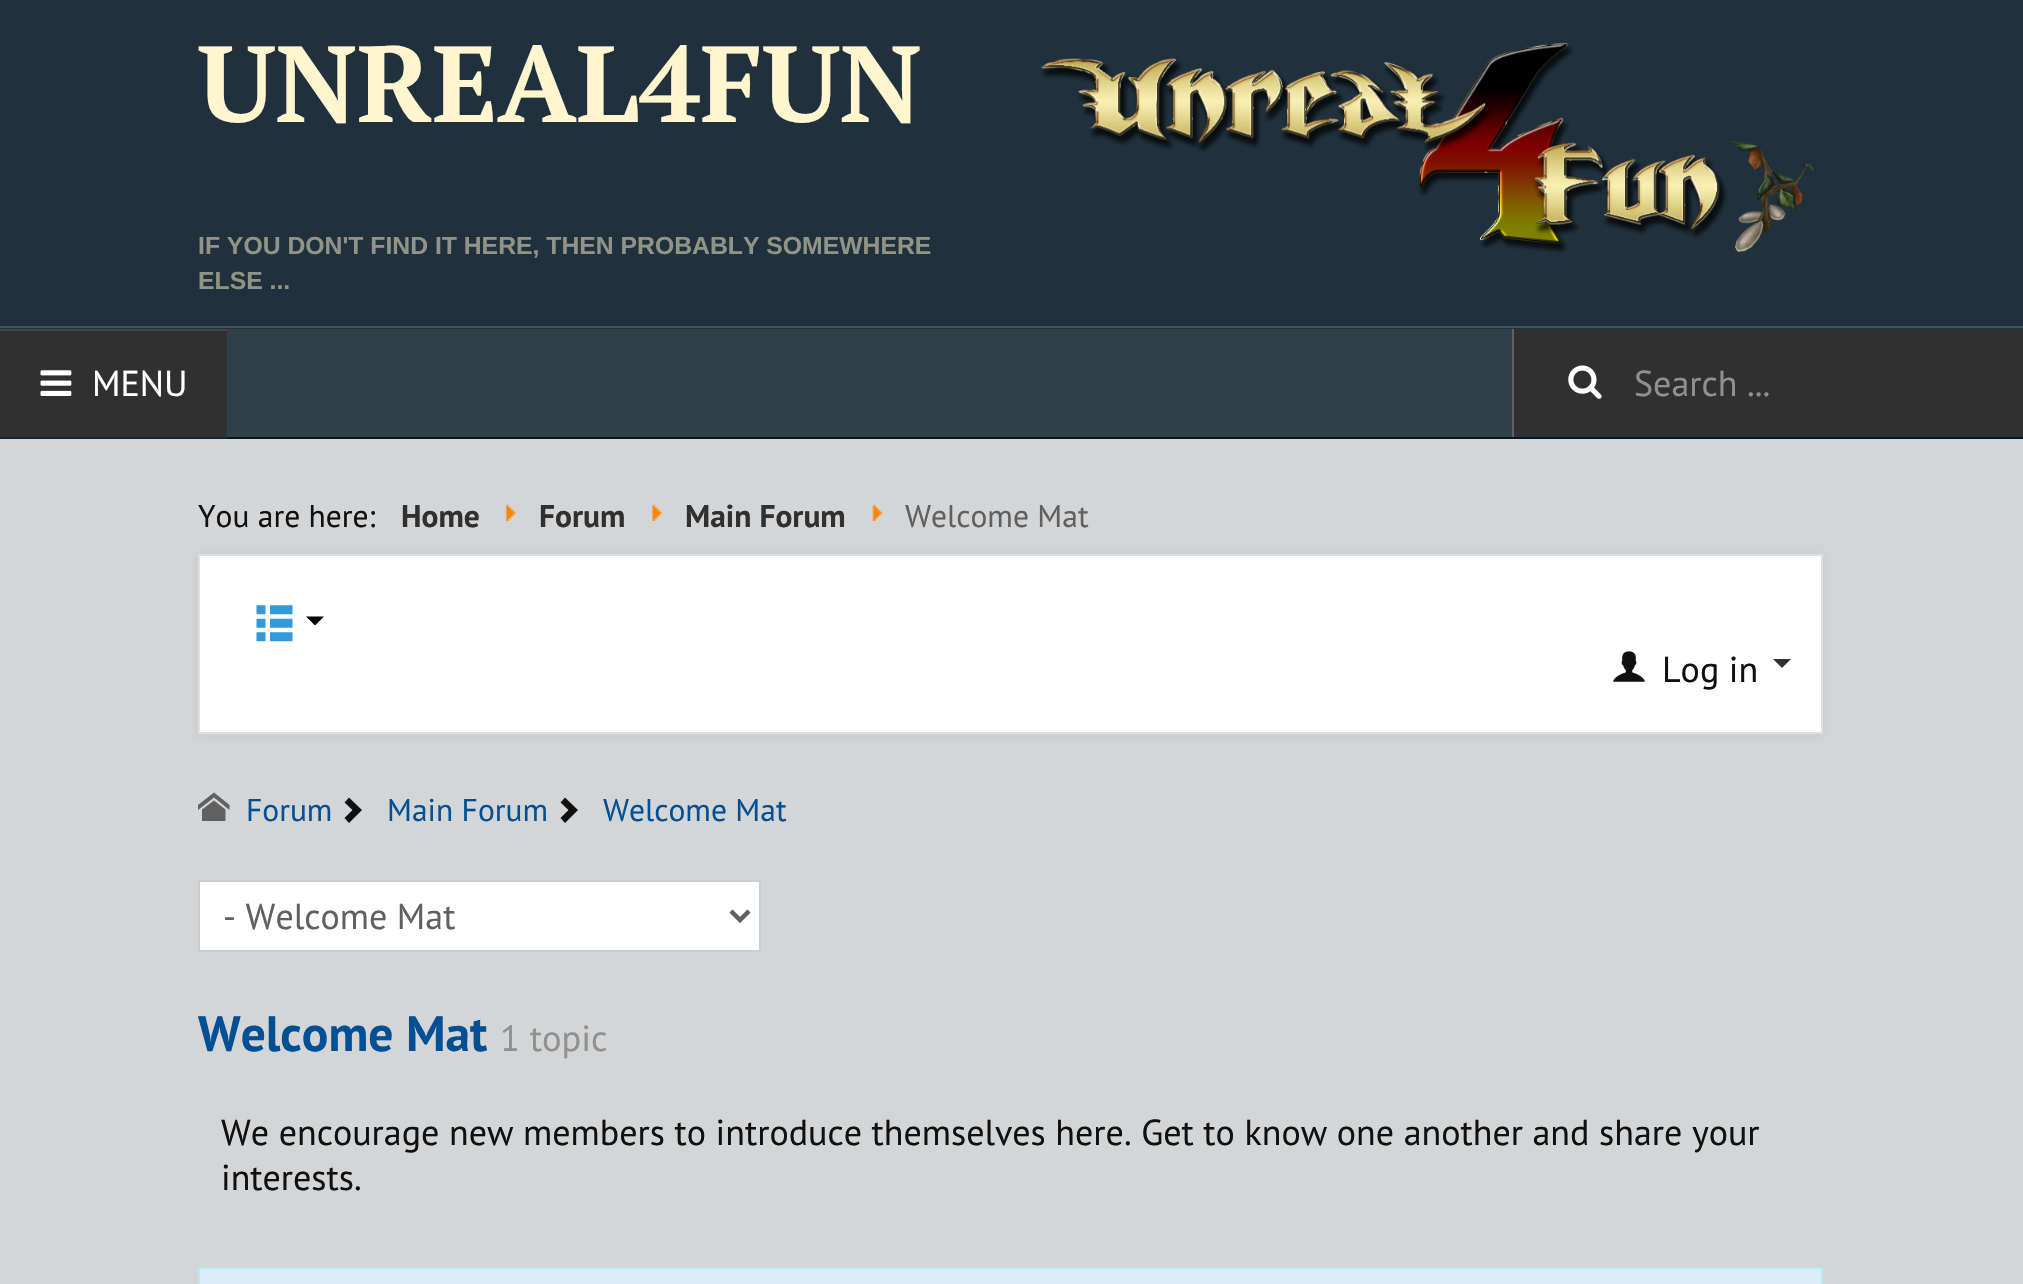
#include "include/core/SkBlurTypes.h"
#include "include/core/SkCanvas.h"
#include "include/core/SkData.h"
#include "include/core/SkFont.h"
#include "include/core/SkFontMgr.h"
#include "include/core/SkImage.h"
#include "include/core/SkMaskFilter.h"
#include "include/core/SkPaint.h"
#include "include/core/SkPathBuilder.h"
#include "include/core/SkTextBlob.h"
#include "include/effects/SkDashPathEffect.h"
#include "include/effects/SkGradientShader.h"
#include "include/utils/SkParsePath.h"

extern sk_sp<SkFontMgr> fontMgr;

void draw(SkCanvas* canvas) {
  SkPaint p;
  p.setAntiAlias(true);
  canvas->clear(SkColorSetRGB(211, 213, 214));
  p.setColor(SkColorSetRGB(32, 49, 61));
  canvas->drawRect(SkRect::MakeLTRB(0, 0, 2023, 329), p);
  p.setColor(SkColorSetRGB(70, 83, 91));
  canvas->drawRect(SkRect::MakeLTRB(0, 326, 2023, 328), p);
  canvas->drawImageRect(SkImages::DeferredFromEncodedData(SkData::MakeFromFileName("images/1.png")), SkRect::MakeLTRB(1041, 42, 1814, 253), SkSamplingOptions());
  p.setColor(SkColorSetRGB(49, 63, 72));
  canvas->drawRect(SkRect::MakeLTRB(227, 329, 1512, 437), p);
  p.setColor(SkColorSetRGB(0, 24, 41));
  canvas->drawRect(SkRect::MakeLTRB(227, 437, 2023, 439), p);
  p.setColor(SkColorSetRGB(18, 40, 56));
  canvas->drawRect(SkRect::MakeLTRB(0, 437, 227, 439), p);
  p.setColor(SkColorSetRGB(48, 48, 48));
  canvas->drawRect(SkRect::MakeLTRB(0, 331, 227, 437), p);
  p.setColor(SkColorSetRGB(69, 69, 69));
  canvas->drawRect(SkRect::MakeLTRB(0, 329, 227, 331), p);
  canvas->drawImageRect(SkImages::DeferredFromEncodedData(SkData::MakeFromFileName("images/2.png")), SkRect::MakeLTRB(40, 370, 72, 396), SkSamplingOptions());
  p.setColor(SkColorSetRGB(48, 48, 48));
  canvas->drawRect(SkRect::MakeLTRB(1514, 329, 2023, 437), p);
  p.setColor(SkColorSetRGB(96, 96, 96));
  canvas->drawRect(SkRect::MakeLTRB(1512, 329, 1514, 437), p);
  canvas->drawImageRect(SkImages::DeferredFromEncodedData(SkData::MakeFromFileName("images/3.png")), SkRect::MakeLTRB(1568, 365, 1602, 399), SkSamplingOptions());
  canvas->drawImageRect(SkImages::DeferredFromEncodedData(SkData::MakeFromFileName("images/4.png")), SkRect::MakeLTRB(505, 504, 516, 521), SkSamplingOptions());
  canvas->drawImageRect(SkImages::DeferredFromEncodedData(SkData::MakeFromFileName("images/5.png")), SkRect::MakeLTRB(652, 504, 663, 521), SkSamplingOptions());
  canvas->drawImageRect(SkImages::DeferredFromEncodedData(SkData::MakeFromFileName("images/6.png")), SkRect::MakeLTRB(872, 504, 883, 521), SkSamplingOptions());
  p.setColor(SkColorSetARGB(18, 0, 0, 0));
  p.setMaskFilter(SkMaskFilter::MakeBlur(kNormal_SkBlurStyle, 4.5f));
  canvas->drawRect(SkRect::MakeLTRB(198, 556, 1823, 736), p);
  p.setMaskFilter(nullptr);
  p.setColor(SK_ColorWHITE);
  canvas->drawRect(SkRect::MakeLTRB(199, 555, 1822, 733), p);
  p.setStyle(SkPaint::kStroke_Style);
  p.setStrokeWidth(2);
  p.setColor(SkColorSetRGB(224, 224, 224));
  canvas->drawRect(SkRect::MakeLTRB(199, 555, 1822, 733), p);
  canvas->drawImageRect(SkImages::DeferredFromEncodedData(SkData::MakeFromFileName("images/7.png")), SkRect::MakeLTRB(256, 605, 293, 642), SkSamplingOptions());
  p.setStyle(SkPaint::kFill_Style);
  p.setColor(SK_ColorBLACK);
  canvas->drawPath(SkPathBuilder().moveTo(306, 616.5f).lineTo(324, 616.5f).lineTo(315, 625.5f).close().detach(), p);
  canvas->drawImageRect(SkImages::DeferredFromEncodedData(SkData::MakeFromFileName("images/8.png")), SkRect::MakeLTRB(1613, 651, 1645, 682), SkSamplingOptions());
  p.setColor(SkColorSetRGB(48, 48, 48));
  canvas->drawPath(SkPathBuilder().moveTo(1773, 659).lineTo(1791, 659).lineTo(1782, 668).close().detach(), p);
  p.setColor(SkColorSetRGB(96, 96, 96));
  canvas->drawPath(SkPathBuilder().moveTo(229.5f, 810).lineTo(229.5f, 805).lineTo(214, 792.5f).lineTo(198, 805).lineTo(198, 810).lineTo(214, 797.5f).close().moveTo(225.5f, 809.5f).lineTo(214, 800.5f).lineTo(202, 809.5f).lineTo(202, 821).lineTo(225.5f, 821).close().detach(), p);
  p.setColor(SkColorSetRGB(16, 16, 16));
  canvas->drawPath(SkPathBuilder().moveTo(349, 797.5f).lineTo(362, 810).lineTo(349, 823).lineTo(344.5f, 818).lineTo(352.5f, 810).lineTo(344.5f, 802.5f).close().detach(), p);
  canvas->drawPath(SkPathBuilder().moveTo(565, 797.5f).lineTo(578, 810).lineTo(565, 823).lineTo(560.5f, 818).lineTo(568.5f, 810).lineTo(560.5f, 802.5f).close().detach(), p);
  p.setColor(SK_ColorWHITE);
  canvas->drawRect(SkRect::MakeLTRB(199, 881, 760, 951), p);
  p.setStyle(SkPaint::kStroke_Style);
  p.setColor(SkColorSetRGB(204, 204, 204));
  canvas->drawRect(SkRect::MakeLTRB(199, 881, 760, 951), p);
  p.setStrokeWidth(4.5f);
  p.setColor(SkColorSetRGB(96, 96, 96));
  canvas->drawPath(SkPathBuilder().moveTo(731, 911).lineTo(740, 920).lineTo(749, 911).detach(), p);
  p.setStyle(SkPaint::kFill_Style);
  p.setColor(SkColorSetRGB(217, 237, 247));
  canvas->drawRect(SkRect::MakeLTRB(199, 1268, 1822, 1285), p);
  p.setStyle(SkPaint::kStroke_Style);
  p.setStrokeWidth(2);
  p.setColor(SkColorSetRGB(188, 232, 241));
  canvas->drawRect(SkRect::MakeLTRB(199, 1268, 1822, 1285), p);
  SkFont font1(fontMgr->matchFamilyStyle("PT Serif", SkFontStyle::Bold()), 108);
  font1.setSubpixel(true);
  p.setStyle(SkPaint::kFill_Style);
  p.setColor(SkColorSetRGB(255, 245, 207));
  canvas->drawString("UNREAL4FUN", 198, 122, font1, p);
  SkFont font2(fontMgr->matchFamilyStyle("Liberation Sans", SkFontStyle::Bold()), 24.75f);
  font2.setSubpixel(true);
  p.setColor(SkColorSetRGB(144, 147, 134));
  canvas->drawString("IF YOU DON'T FIND IT HERE, THEN PROBABLY SOMEWHERE", 198, 254, font2, p);
  canvas->drawString("ELSE ...", 198, 289, font2, p);
  SkFont font3(fontMgr->matchFamilyStyle("PT Sans", SkFontStyle::Normal()), 36);
  font3.setSubpixel(true);
  p.setColor(SK_ColorWHITE);
  canvas->drawString("MENU", 92, 396, font3, p);
  p.setColor(SkColorSetRGB(144, 144, 144));
  canvas->drawString("Search ...", 1634, 396, font3, p);
  SkFont font4(fontMgr->matchFamilyStyle("PT Sans", SkFontStyle::Normal()), 31.5f);
  font4.setSubpixel(true);
  p.setColor(SkColorSetRGB(16, 16, 16));
  canvas->drawString("You are here:", 198, 527, font4, p);
  SkFont font5(fontMgr->matchFamilyStyle("PT Sans", SkFontStyle::Bold()), 31.5f);
  font5.setSubpixel(true);
  p.setColor(SkColorSetRGB(48, 48, 48));
  canvas->drawString("Home", 401, 527, font5, p);
  canvas->drawString("Forum", 539, 527, font5, p);
  canvas->drawString("Main Forum", 685, 527, font5, p);
  p.setColor(SkColorSetRGB(96, 96, 96));
  canvas->drawString("Welcome Mat", 905, 527, font4, p);
  p.setColor(SkColorSetRGB(16, 16, 16));
  canvas->drawString("Log in", 1662, 682, font3, p);
  p.setColor(SkColorSetRGB(2, 80, 148));
  canvas->drawString("Forum", 246, 821, font4, p);
  canvas->drawString("Main Forum", 387, 821, font4, p);
  canvas->drawString("Welcome Mat", 603, 821, font4, p);
  p.setColor(SkColorSetRGB(96, 96, 96));
  canvas->drawString("- Welcome Mat", 223, 929, font3, p);
  SkFont font6(fontMgr->matchFamilyStyle("PT Sans", SkFontStyle::Bold()), 49.5f);
  font6.setSubpixel(true);
  p.setColor(SkColorSetRGB(2, 80, 148));
  canvas->drawString("Welcome Mat", 198, 1051, font6, p);
  SkFont font7(fontMgr->matchFamilyStyle("PT Sans", SkFontStyle::Normal()), 36.5f);
  font7.setSubpixel(true);
  p.setColor(SkColorSetRGB(144, 144, 144));
  canvas->drawString("1 topic", 500, 1051, font7, p);
  p.setColor(SkColorSetRGB(16, 16, 16));
  canvas->drawString("We encourage new members to introduce themselves here. Get to know one another and share your", 221, 1145, font3, p);
  canvas->drawString("interests.", 221, 1190, font3, p);
}
